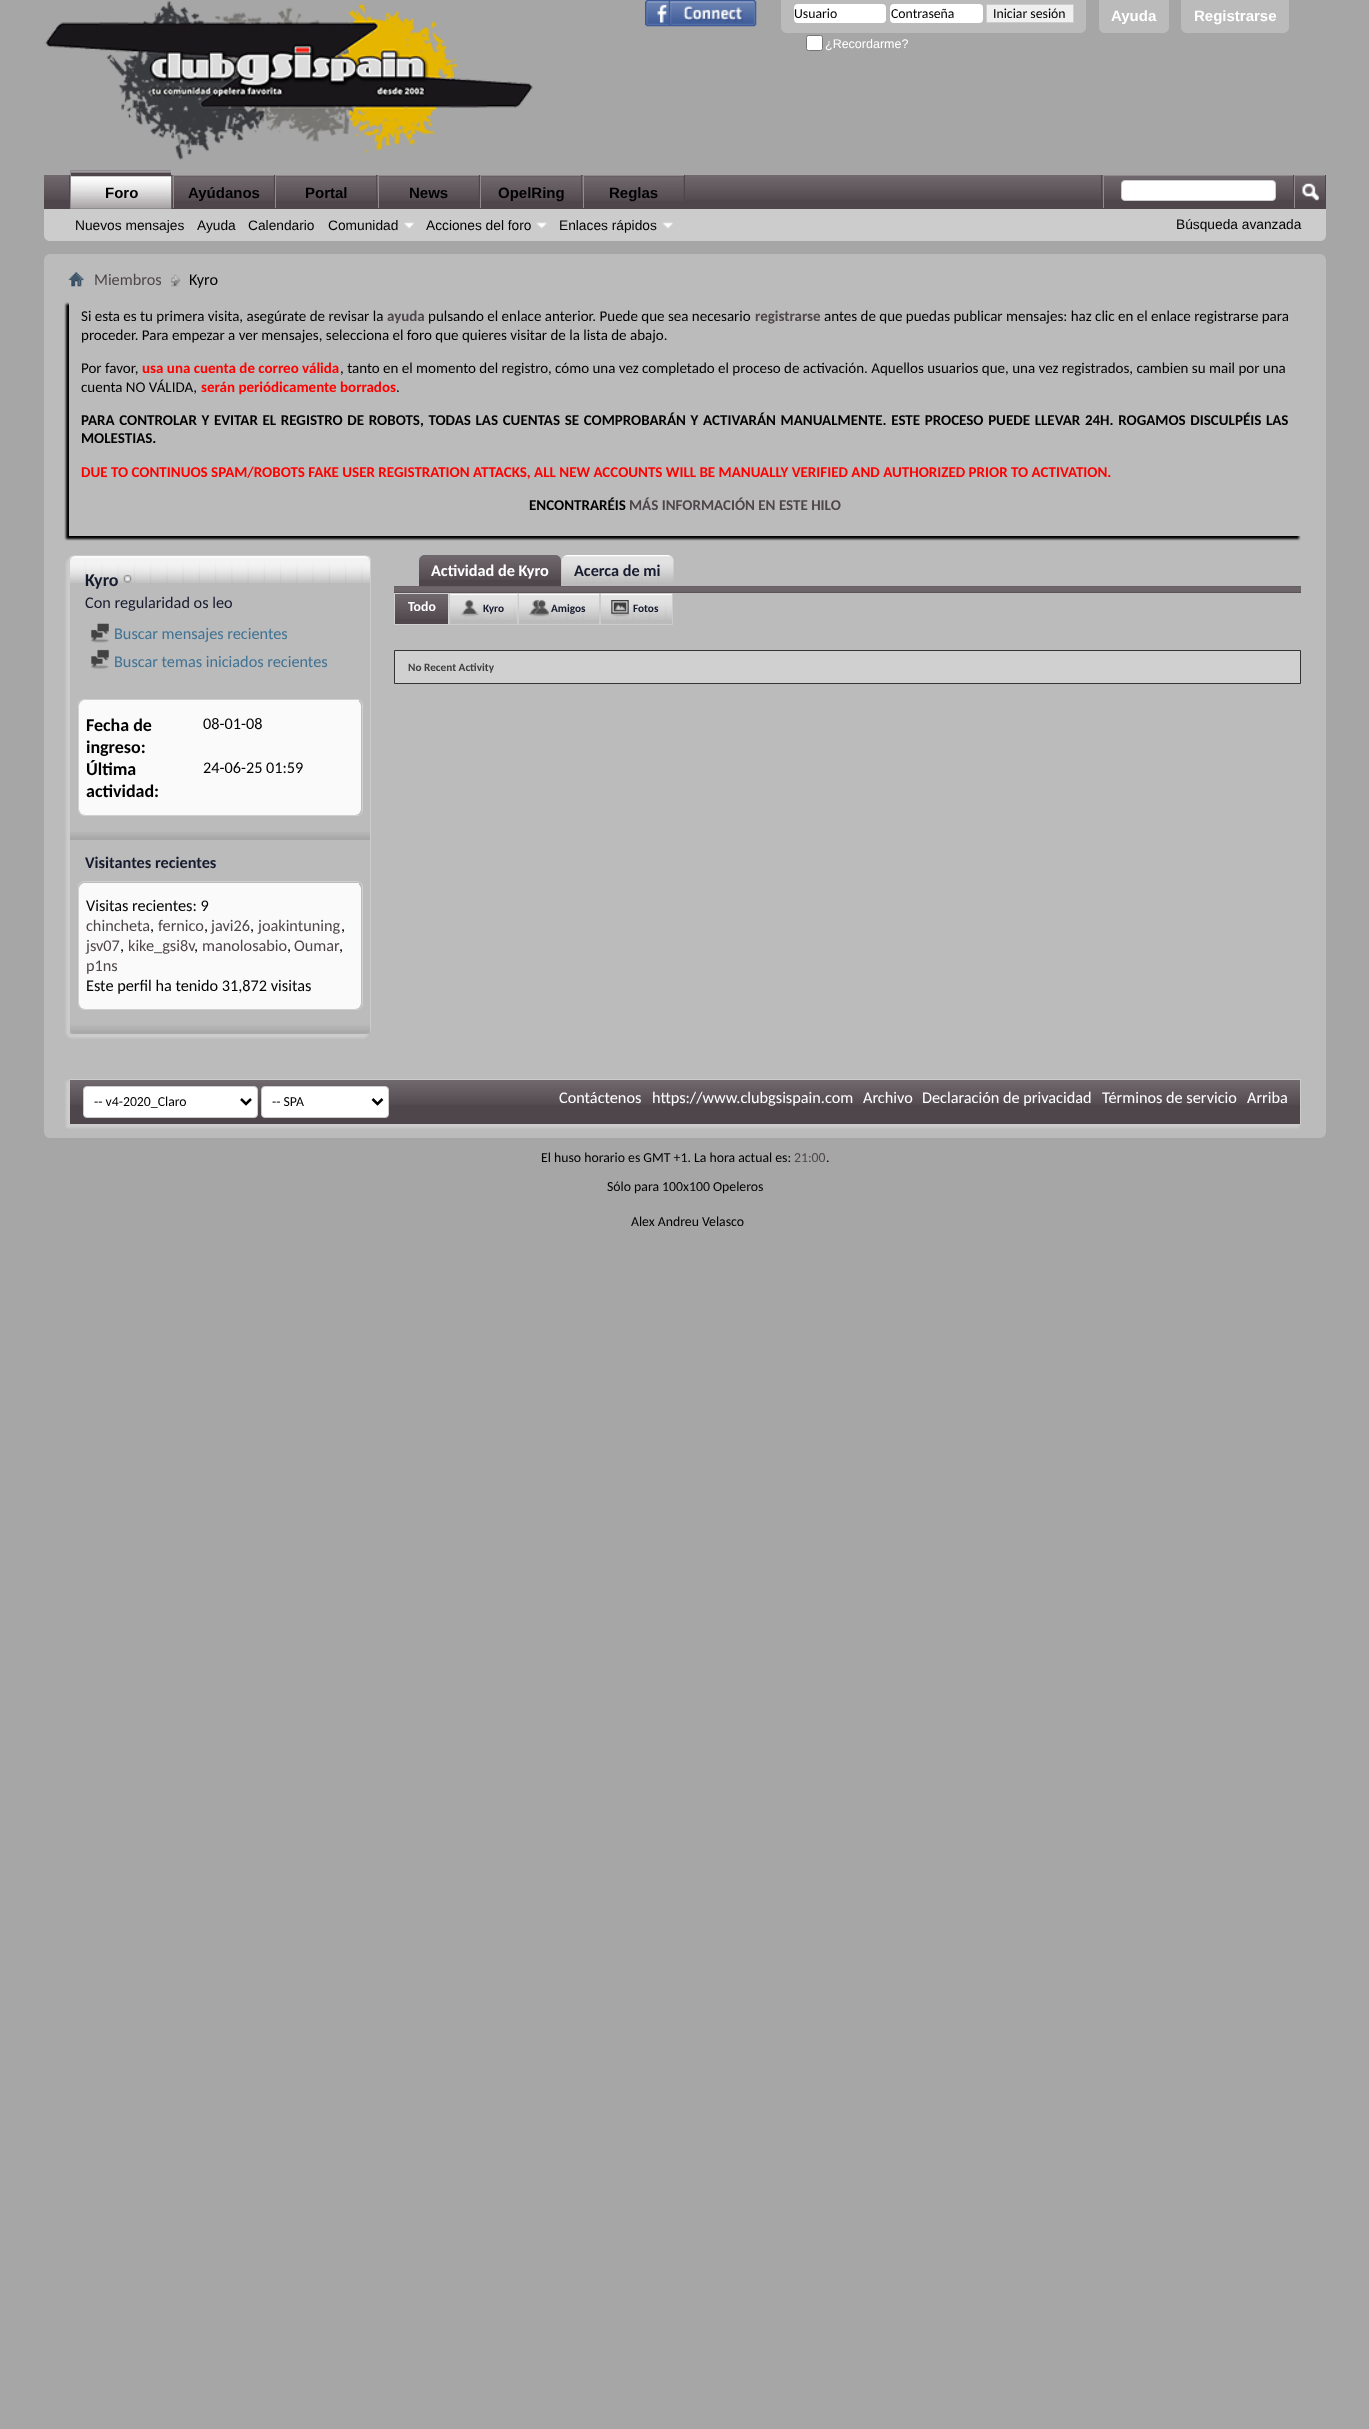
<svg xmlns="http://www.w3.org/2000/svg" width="1369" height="2429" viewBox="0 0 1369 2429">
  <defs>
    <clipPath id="clip1"><path d="M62 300H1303V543H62ZM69 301H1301V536H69Z" clip-rule="evenodd"/></clipPath>
  </defs>
  <rect width="100%" height="100%" fill="#a6a6a6"/>
  <image x="45" y="1" width="488" height="159" href="img/1.png"/>
  <image x="645" y="0" width="112" height="27" href="img/2.png"/>
  <path d="M781 0H1086V27C1086 30.5 1083.5 33 1080 33H787C783.5 33 781 30.5 781 27Z" fill="#bbb"/>
  <rect x="794" y="4" width="92" height="19" rx="4" fill="#fff"/>
  <rect x="890" y="4" width="93" height="19" rx="4" fill="#fff"/>
  <path d="M986.5 4.5h87v18H986.5z" fill="#efefef" stroke="#ccc"/>
  <rect x="806.5" y="35.5" width="16" height="15" rx="2" fill="#fff" stroke="#767676"/>
  <path d="M1099 0H1169V27C1169 30.5 1166.5 33 1163 33H1105C1101.5 33 1099 30.5 1099 27Z" fill="#bbb"/>
  <path d="M1181 0H1289V27C1289 30.5 1286.5 33 1283 33H1187C1183.5 33 1181 30.5 1181 27Z" fill="#bbb"/>
  <path d="M44 175H1326V235C1326 238.5 1323.5 241 1320 241H50C46.5 241 44 238.5 44 235Z" fill="#ccc"/>
  <path d="M44 175h1282v33H44z" fill="#4f464b"/>
  <image x="44" y="175" width="1281" height="25" href="img/3.png"/>
  <path d="M171 175h1v33H171z" fill="#4f464b"/>
  <path d="M69 175h1v33H69z" fill="#4f464b"/>
  <path d="M71 171h100v29H71z" fill="#4f464b"/>
  <path d="M274 175h1v34H274z" fill="#4f464b"/>
  <path d="M174 176h100v24H174z" fill="#4f464b"/>
  <image x="172" y="176" width="102" height="25" href="img/5.png"/>
  <path d="M173 175h101v1H173z" fill="#90898d"/>
  <path d="M173 175h1v34H173z" fill="#90898d"/>
  <path d="M376 175h1v34H376z" fill="#4f464b"/>
  <path d="M275 175h101v1H275z" fill="#90898d"/>
  <path d="M275 175h1v34H275z" fill="#90898d"/>
  <path d="M479 175h1v34H479z" fill="#4f464b"/>
  <path d="M379 176h100v24H379z" fill="#4f464b"/>
  <image x="377" y="176" width="102" height="25" href="img/5.png"/>
  <path d="M378 175h101v1H378z" fill="#90898d"/>
  <path d="M378 175h1v34H378z" fill="#90898d"/>
  <path d="M581 175h1v34H581z" fill="#4f464b"/>
  <path d="M480 175h101v1H480z" fill="#90898d"/>
  <path d="M480 175h1v34H480z" fill="#90898d"/>
  <path d="M684 175h1v34H684z" fill="#4f464b"/>
  <path d="M584 176h100v24H584z" fill="#4f464b"/>
  <image x="582" y="176" width="102" height="25" href="img/5.png"/>
  <path d="M583 175h101v1H583z" fill="#90898d"/>
  <path d="M583 175h1v34H583z" fill="#90898d"/>
  <path d="M44 208h1282v1H44z" fill="#4f464b"/>
  <image x="71" y="171" width="101" height="38" href="img/4.png"/>
  <path d="M70 170h101v1H70z" fill="#90898d"/>
  <path d="M70 170h1v39H70z" fill="#90898d"/>
  <path d="M276 176h100v24H276z" fill="#4f464b"/>
  <image x="276" y="176" width="101" height="25" href="img/6.png"/>
  <path d="M481 176h100v24H481z" fill="#4f464b"/>
  <image x="481" y="176" width="101" height="25" href="img/6.png"/>
  <image x="404" y="222" width="10" height="7" href="img/7.png"/>
  <image x="536" y="222" width="11" height="7" href="img/8.png"/>
  <image x="662" y="222" width="11" height="7" href="img/9.png"/>
  <path d="M1101 175h1v33H1101z" fill="#4f464b"/>
  <path d="M1103 175h190v1H1103z" fill="#90898d"/>
  <path d="M1103 175h1v33H1103z" fill="#90898d"/>
  <rect x="1121.5" y="180.5" width="154" height="20" rx="3.5" fill="#fff" stroke="#ccc"/>
  <path d="M1293 175h1v33H1293z" fill="#4f464b"/>
  <path d="M1294 175h31v1H1294z" fill="#90898d"/>
  <path d="M1294 175h1v33H1294z" fill="#90898d"/>
  <image x="1302" y="183" width="17" height="18" href="img/10.png"/>
  <rect x="44" y="254" width="1282" height="884" rx="6" fill="#bbb"/>
  <image x="68" y="272" width="16" height="15" href="img/11.png"/>
  <image x="171" y="274" width="9" height="13" href="img/12.png"/>
  <g clip-path="url(#clip1)">
    <path d="M66 304h1233v235H66z" fill="#000" filter="blur(1px)"/>
  </g>
  <rect x="66" y="558" width="303" height="480" rx="6" fill="#ccc" filter="blur(1px)"/>
  <rect x="69" y="555" width="302" height="480" rx="6" fill="#bbb"/>
  <image x="69" y="556" width="302" height="27" href="img/13.png"/>
  <rect x="69.5" y="555.5" width="301" height="479" rx="5.5" fill="none" stroke="#ccc"/>
  <image x="70" y="556" width="300" height="27" href="img/14.png"/>
  <image x="123" y="574" width="9" height="9" href="img/15.png"/>
  <image x="90" y="623" width="19" height="20" href="img/16.png"/>
  <image x="91" y="649" width="18" height="20" href="img/17.png"/>
  <rect x="78.5" y="699.5" width="284" height="116" rx="5.5" fill="none" stroke="#d0d0d0"/>
  <rect x="79" y="700" width="282" height="115" rx="6" fill="#fafafa"/>
  <path d="M83 700h276v1H83z" fill="#fafafa"/>
  <image x="70" y="832" width="300" height="8" href="img/18.png"/>
  <rect x="78.5" y="881.5" width="284" height="128" rx="5.5" fill="none" stroke="#d0d0d0"/>
  <rect x="79" y="883" width="282" height="126" rx="6" fill="#fafafa"/>
  <path d="M83 883h276v1H83z" fill="#fafafa"/>
  <image x="70" y="1025" width="300" height="9" href="img/19.png"/>
  <path d="M425 555H555C558.5 555 561 557.5 561 561V586H419V561C419 557.5 421.5 555 425 555Z" fill="#4f464b"/>
  <image x="419" y="555" width="142" height="25" href="img/20.png"/>
  <image x="561" y="555" width="113" height="27" href="img/21.png"/>
  <path d="M394 586h907v7H394z" fill="#4f464b"/>
  <image x="394" y="586" width="907" height="7" href="img/22.png"/>
  <path d="M395 594h53v30H395z" fill="#4f464b"/>
  <image x="395" y="594" width="53" height="25" href="img/23.png"/>
  <path d="M394.5 593.5h54v31H394.5z" fill="none" stroke="#d0d0d0"/>
  <image x="448" y="593" width="69" height="27" href="img/24.png"/>
  <path d="M449.5 593.5h68v31H449.5z" fill="none" stroke="#ccc"/>
  <image x="461" y="599" width="18" height="18" href="img/25.png"/>
  <image x="517" y="593" width="82" height="27" href="img/26.png"/>
  <path d="M518.5 593.5h81v31H518.5z" fill="none" stroke="#ccc"/>
  <image x="528" y="599" width="21" height="18" href="img/27.png"/>
  <image x="601" y="594" width="71" height="26" href="img/28.png"/>
  <path d="M600.5 593.5h72v31H600.5z" fill="none" stroke="#ccc"/>
  <image x="611" y="600" width="19" height="17" href="img/29.png"/>
  <path d="M394.5 650.5h906v33H394.5z" fill="#d0d0d0" stroke="#333"/>
  <path d="M66 1081h1233v47H66z" fill="#ccc" filter="blur(1px)"/>
  <path d="M70 1080h1230v44H70z" fill="#4f464b"/>
  <image x="70" y="1080" width="1230" height="25" href="img/30.png"/>
  <path d="M69.5 1079.5h1231v45H69.5z" fill="none" stroke="#ccc"/>
  <rect x="83.5" y="1086.5" width="174" height="31" rx="3.5" fill="#fff" stroke="#ccc"/>
  <path d="M241 1099L246 1104L251 1099" fill="none" stroke="#000" stroke-width="2.5"/>
  <rect x="261.5" y="1086.5" width="127" height="31" rx="3.5" fill="#fff" stroke="#ccc"/>
  <path d="M372.5 1099L377.5 1104L382.5 1099" fill="none" stroke="#000" stroke-width="2.5"/>
  <g font-family="Carlito" font-size="13.75" fill="#000">
    <text x="794" y="18">Usuario</text>
    <text x="891" y="18">Contraseña</text>
    <text x="993" y="18">Iniciar sesión</text>
  </g>
  <text x="825" y="48" font-family="Liberation Sans" font-size="12.5" fill="#fff">¿Recordarme?</text>
  <g font-family="Liberation Sans" font-size="15" font-weight="bold" fill="#fff">
    <text x="1111" y="21">Ayuda</text>
    <text x="1194" y="21">Registrarse</text>
  </g>
  <g font-family="Liberation Sans" font-size="15" font-weight="bold" fill="#000">
    <text x="105" y="198">Foro</text>
    <text x="188" y="198">Ayúdanos</text>
    <text x="305" y="198">Portal</text>
    <text x="409" y="198">News</text>
    <text x="498" y="198">OpelRing</text>
    <text x="609" y="198">Reglas</text>
  </g>
  <g font-family="Liberation Sans" font-size="13.75" fill="#000">
    <text x="75" y="230">Nuevos mensajes</text>
    <text x="197" y="230">Ayuda</text>
    <text x="248" y="230">Calendario</text>
    <text x="328" y="230">Comunidad</text>
    <text x="426" y="230">Acciones del foro</text>
    <text x="559" y="230">Enlaces rápidos</text>
    <text x="1176" y="229">Búsqueda avanzada</text>
  </g>
  <text x="94" y="285" font-family="Carlito" font-size="16.25" fill="#4f464b">Miembros</text>
  <text x="189" y="285" font-family="Carlito" font-size="16.25" fill="#000">Kyro</text>
  <text x="81" y="321" font-family="Carlito" font-size="15" fill="#000">Si esta es tu primera visita, asegúrate de revisar la</text>
  <text x="387" y="321" font-family="Carlito" font-size="15" font-weight="bold" fill="#4f464b">ayuda</text>
  <text x="428" y="321" font-family="Carlito" font-size="15" fill="#000">pulsando el enlace anterior. Puede que sea necesario</text>
  <text x="755" y="321" font-family="Carlito" font-size="15" font-weight="bold" fill="#4f464b">registrarse</text>
  <g font-family="Carlito" font-size="15" fill="#000">
    <text x="824" y="321">antes de que puedas publicar mensajes: haz clic en el enlace registrarse para</text>
    <text x="81" y="340">proceder. Para empezar a ver mensajes, selecciona el foro que quieres visitar de la lista de abajo.</text>
    <text x="81" y="373">Por favor,</text>
  </g>
  <text x="142" y="373" font-family="Carlito" font-size="15" font-weight="bold" fill="#f00">usa una cuenta de correo válida</text>
  <g font-family="Carlito" font-size="15" fill="#000">
    <text x="340" y="373">, tanto en el momento del registro, cómo una vez completado el proceso de activación. Aquellos usuarios que, una vez registrados, cambien su mail por una</text>
    <text x="81" y="392">cuenta NO VÁLIDA,</text>
  </g>
  <text x="201" y="392" font-family="Carlito" font-size="15" font-weight="bold" fill="#f00">serán periódicamente borrados</text>
  <text x="396" y="392" font-family="Carlito" font-size="15" fill="#000">.</text>
  <g font-family="Carlito" font-size="15" font-weight="bold" fill="#000">
    <text x="81" y="425" word-spacing="1.25">PARA CONTROLAR Y EVITAR EL REGISTRO DE ROBOTS, TODAS LAS CUENTAS SE COMPROBARÁN Y ACTIVARÁN MANUALMENTE. ESTE PROCESO PUEDE LLEVAR 24H. ROGAMOS DISCULPÉIS LAS</text>
    <text x="81" y="443">MOLESTIAS.</text>
  </g>
  <text x="81" y="477" font-family="Carlito" font-size="15" font-weight="bold" fill="#f00">DUE TO CONTINUOS SPAM/ROBOTS FAKE USER REGISTRATION ATTACKS, ALL NEW ACCOUNTS WILL BE MANUALLY VERIFIED AND AUTHORIZED PRIOR TO ACTIVATION.</text>
  <text x="529" y="510" font-family="Carlito" font-size="15" font-weight="bold" fill="#000">ENCONTRARÉIS</text>
  <text x="629" y="510" font-family="Carlito" font-size="15" font-weight="bold" fill="#4f464b">MÁS INFORMACIÓN EN ESTE HILO</text>
  <text x="85" y="586" font-family="Carlito" font-size="18" font-weight="bold" fill="#161a2e">Kyro</text>
  <text x="85" y="608" font-family="Carlito" font-size="16.25" fill="#161a2e">Con regularidad os leo</text>
  <g font-family="Carlito" font-size="16.25" fill="#417394">
    <text x="114" y="639">Buscar mensajes recientes</text>
    <text x="114" y="667">Buscar temas iniciados recientes</text>
  </g>
  <g font-family="Carlito" font-size="18" font-weight="bold" fill="#000">
    <text x="86" y="731">Fecha de</text>
    <text x="86" y="753">ingreso:</text>
  </g>
  <text x="203" y="729" font-family="Carlito" font-size="16.25" fill="#000">08-01-08</text>
  <g font-family="Carlito" font-size="18" font-weight="bold" fill="#000">
    <text x="86" y="775">Última</text>
    <text x="86" y="797">actividad:</text>
  </g>
  <text x="203" y="773" font-family="Carlito" font-size="16.25" fill="#000">24-06-25 01:59</text>
  <text x="85" y="868" font-family="Carlito" font-size="16.25" font-weight="bold" fill="#161a2e">Visitantes recientes</text>
  <text x="86" y="911" font-family="Carlito" font-size="16.25" fill="#000">Visitas recientes: 9</text>
  <text x="86" y="931" font-family="Carlito" font-size="16.25" fill="#4f464b">chincheta</text>
  <text x="150" y="931" font-family="Carlito" font-size="16.25" fill="#000">,</text>
  <text x="158" y="931" font-family="Carlito" font-size="16.25" fill="#4f464b">fernico</text>
  <text x="204" y="931" font-family="Carlito" font-size="16.25" fill="#000">,</text>
  <text x="211" y="931" font-family="Carlito" font-size="16.25" fill="#4f464b">javi26</text>
  <text x="250" y="931" font-family="Carlito" font-size="16.25" fill="#000">,</text>
  <text x="258" y="931" font-family="Carlito" font-size="16.25" fill="#4f464b">joakintuning</text>
  <text x="341" y="931" font-family="Carlito" font-size="16.25" fill="#000">,</text>
  <text x="86" y="951" font-family="Carlito" font-size="16.25" fill="#4f464b">jsv07</text>
  <text x="120" y="951" font-family="Carlito" font-size="16.25" fill="#000">,</text>
  <text x="128" y="951" font-family="Carlito" font-size="16.25" fill="#4f464b">kike_gsi8v</text>
  <text x="194" y="951" font-family="Carlito" font-size="16.25" fill="#000">,</text>
  <text x="202" y="951" font-family="Carlito" font-size="16.25" fill="#4f464b">manolosabio</text>
  <text x="287" y="951" font-family="Carlito" font-size="16.25" fill="#000">,</text>
  <text x="294" y="951" font-family="Carlito" font-size="16.25" fill="#4f464b">Oumar</text>
  <text x="339" y="951" font-family="Carlito" font-size="16.25" fill="#000">,</text>
  <text x="86" y="971" font-family="Carlito" font-size="16.25" fill="#4f464b">p1ns</text>
  <text x="86" y="991" font-family="Carlito" font-size="16.25" fill="#000">Este perfil ha tenido 31,872 visitas</text>
  <text x="431" y="576" font-family="Carlito" font-size="16.25" font-weight="bold" fill="#fff">Actividad de Kyro</text>
  <text x="574" y="576" font-family="Carlito" font-size="16.25" font-weight="bold" fill="#161a2e">Acerca de mi</text>
  <text x="408" y="611" font-family="Carlito" font-size="13.75" font-weight="bold" fill="#fff">Todo</text>
  <g font-family="Carlito" font-size="11.25" font-weight="bold" fill="#161a2e">
    <text x="483" y="612">Kyro</text>
    <text x="551" y="612">Amigos</text>
    <text x="633" y="612">Fotos</text>
  </g>
  <text x="408" y="671" font-family="Carlito" font-size="11.25" font-weight="bold" fill="#3e3e3e">No Recent Activity</text>
  <g font-family="Carlito" font-size="13.75" fill="#000">
    <text x="94" y="1106">-- v4-2020_Claro</text>
    <text x="272" y="1106">-- SPA</text>
  </g>
  <g font-family="Carlito" font-size="16.25" fill="#fff">
    <text x="559" y="1103">Contáctenos</text>
    <text x="652" y="1103">https://www.clubgsispain.com</text>
    <text x="863" y="1103">Archivo</text>
    <text x="922" y="1103">Declaración de privacidad</text>
    <text x="1102" y="1103">Términos de servicio</text>
    <text x="1247" y="1103">Arriba</text>
  </g>
  <text x="541" y="1162" font-family="Carlito" font-size="13.75" fill="#000">El huso horario es GMT +1. La hora actual es:</text>
  <text x="794" y="1162" font-family="Carlito" font-size="13.75" fill="#4f464b">21:00</text>
  <g font-family="Carlito" font-size="13.75" fill="#000">
    <text x="826" y="1162">.</text>
    <text x="607" y="1191">Sólo para 100x100 Opeleros</text>
    <text x="631" y="1226">Alex Andreu Velasco</text>
  </g>
</svg>
